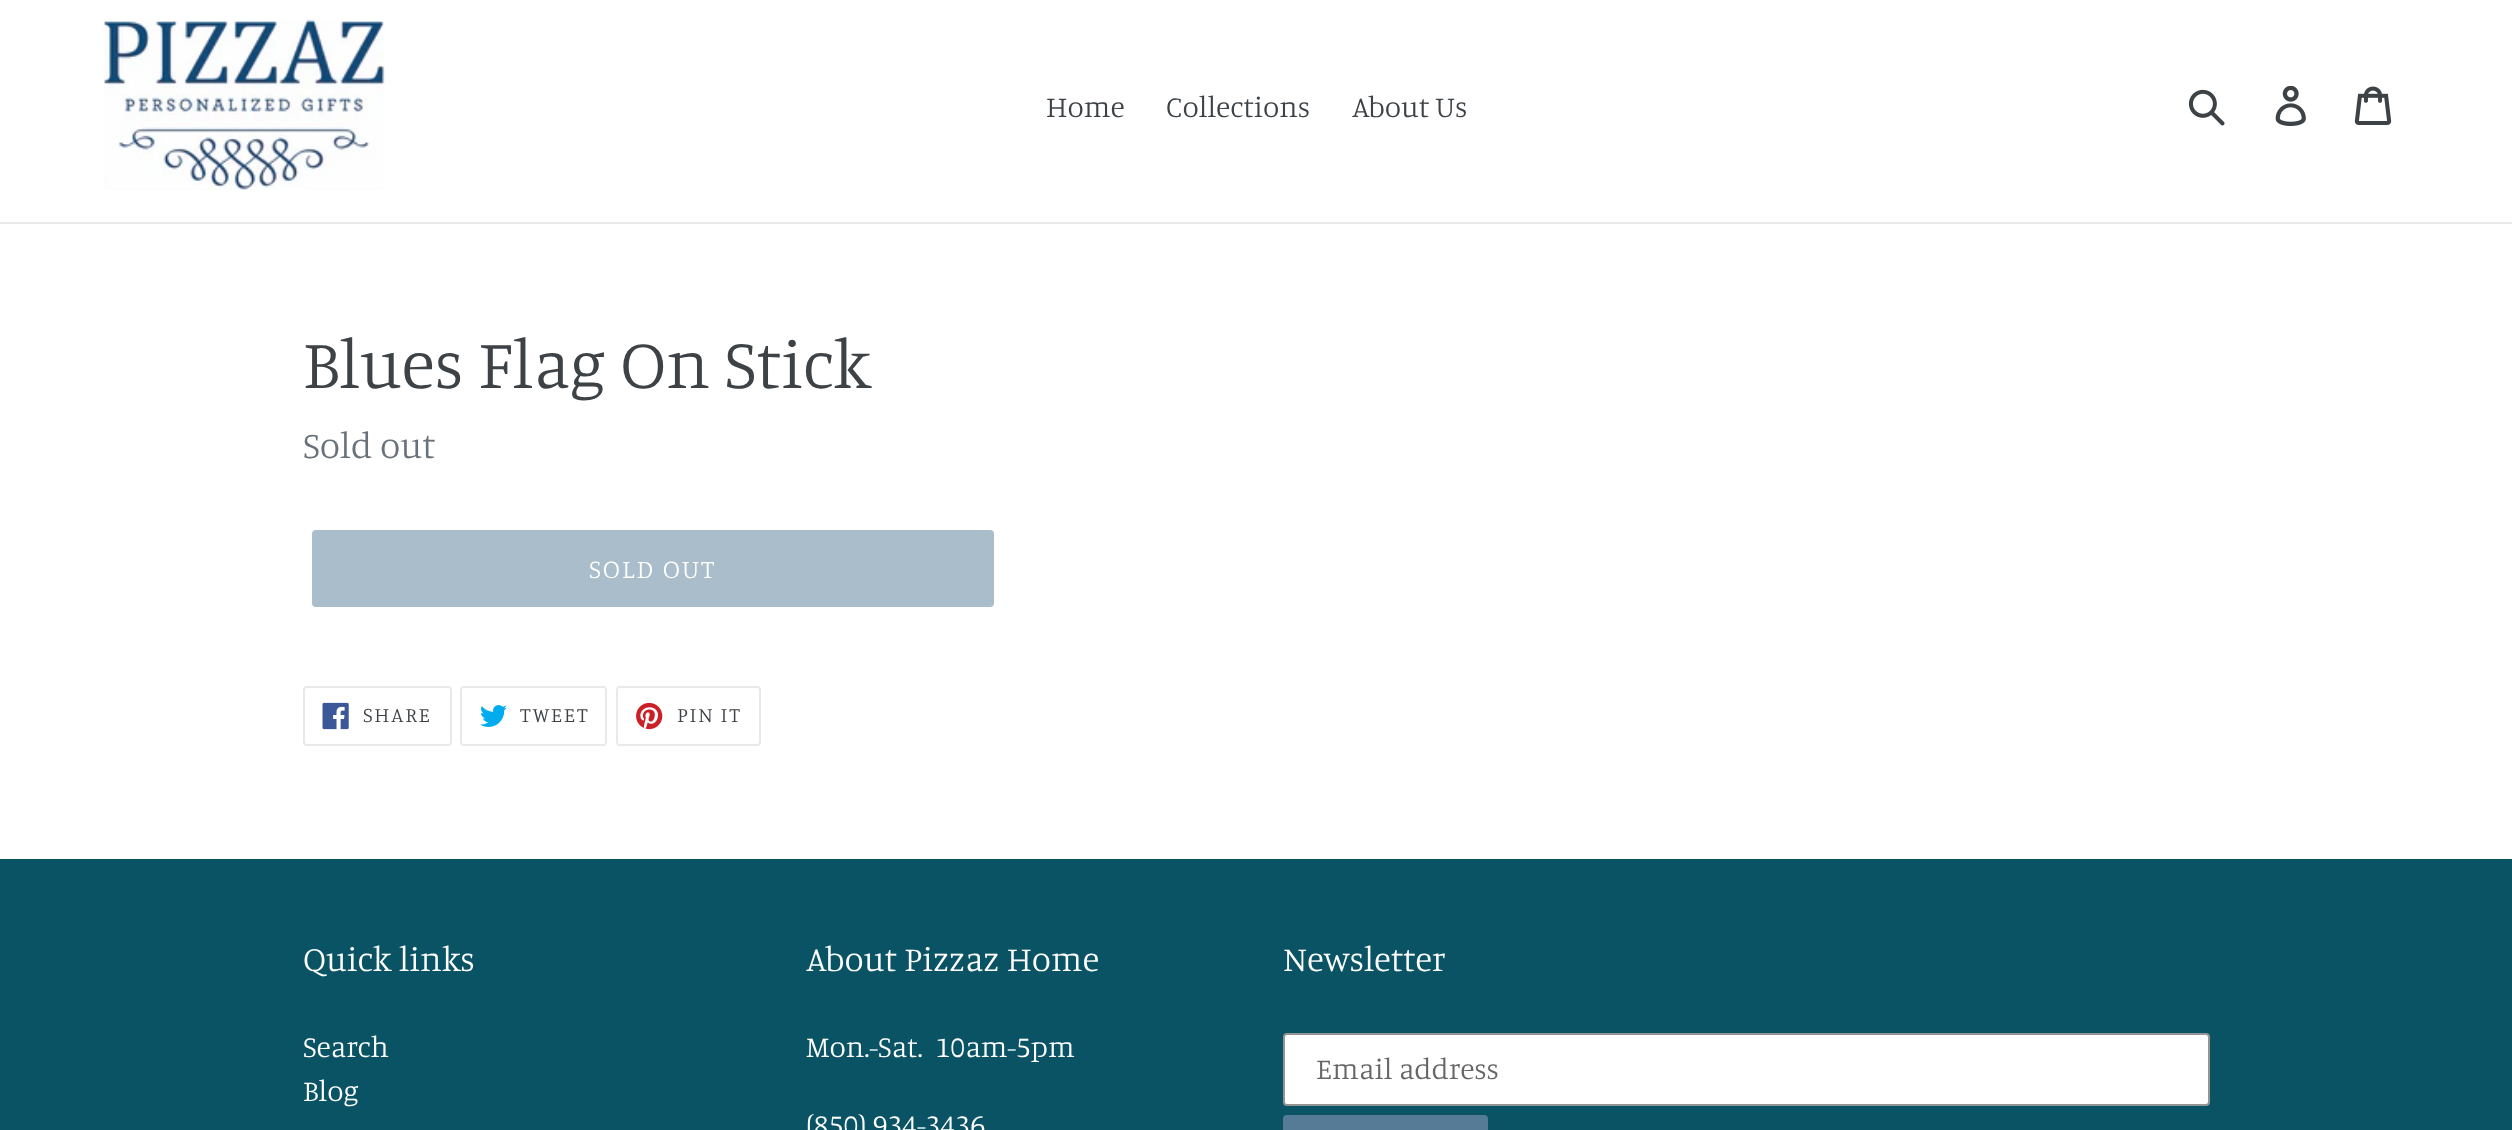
<svg xmlns="http://www.w3.org/2000/svg" width="2512" height="1130" viewBox="0 0 2512 1130">
  <rect width="100%" height="100%" fill="#fff"/>
  <path d="M0 222h2512v2H0z" fill="#e8e9eb"/>
  <image x="104" y="19" width="281" height="171" href="img/1.png"/>
  <image x="2188" y="89" width="37" height="37" href="img/2.png"/>
  <image x="2275" y="86" width="31" height="40" href="img/3.png"/>
  <image x="2354" y="86" width="38" height="39" href="img/4.png"/>
  <rect x="312" y="530" width="682" height="77" rx="4" fill="#aabdcb"/>
  <rect x="304" y="687" width="147" height="58" rx="3" fill="none" stroke="#e8e9eb" stroke-width="2"/>
  <image x="322" y="702" width="27" height="28" href="img/5.png"/>
  <rect x="461" y="687" width="145" height="58" rx="3" fill="none" stroke="#e8e9eb" stroke-width="2"/>
  <image x="480" y="705" width="27" height="22" href="img/6.png"/>
  <rect x="617" y="687" width="143" height="58" rx="3" fill="none" stroke="#e8e9eb" stroke-width="2"/>
  <image x="636" y="702" width="27" height="28" href="img/7.png"/>
  <path d="M0 859h2512v271H0z" fill="#095365"/>
  <rect x="1284" y="1034" width="925" height="71" rx="3" fill="#fff" stroke="#949494" stroke-width="2"/>
  <rect x="1283" y="1115" width="205" height="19" rx="4" fill="#557b97"/>
  <g font-family="Manuale" font-size="29.75" font-weight="300" fill="#3d4246">
    <text x="1046" y="117">Home</text>
    <text x="1166" y="117">Collections</text>
    <text x="1352" y="117">About Us</text>
  </g>
  <text x="303" y="388" font-family="Manuale" font-size="70" font-weight="300" fill="#3d4246">Blues Flag On Stick</text>
  <text x="303" y="458" font-family="Manuale" font-size="37" font-weight="300" fill="#69727b">Sold out</text>
  <text x="589" y="578" font-family="Manuale" font-size="26.25" font-weight="300" letter-spacing="2" fill="#fff">SOLD OUT</text>
  <g font-family="Manuale" font-size="21" font-weight="300" letter-spacing="1.75" fill="#3d4246">
    <text x="363" y="722">SHARE</text>
    <text x="520" y="722">TWEET</text>
    <text x="677" y="722">PIN IT</text>
  </g>
  <text x="303" y="971" font-family="Manuale" font-size="35" font-weight="300" fill="#fff">Quick links</text>
  <g font-family="Manuale" font-size="29.75" font-weight="300" fill="#fff">
    <text x="303" y="1057">Search</text>
    <text x="303" y="1101">Blog</text>
  </g>
  <text x="806" y="971" font-family="Manuale" font-size="35" font-weight="300" fill="#fff">About Pizzaz Home</text>
  <g font-family="Manuale" font-size="29.75" font-weight="300" fill="#fff">
    <text x="806" y="1057" xml:space="preserve">Mon.-Sat.  10am-5pm</text>
    <text x="806" y="1135">(850) 934-3436</text>
  </g>
  <text x="1283" y="971" font-family="Manuale" font-size="35" font-weight="300" fill="#fff">Newsletter</text>
  <text x="1316" y="1079" font-family="Manuale" font-size="29.75" font-weight="300" fill="#666">Email address</text>
</svg>
